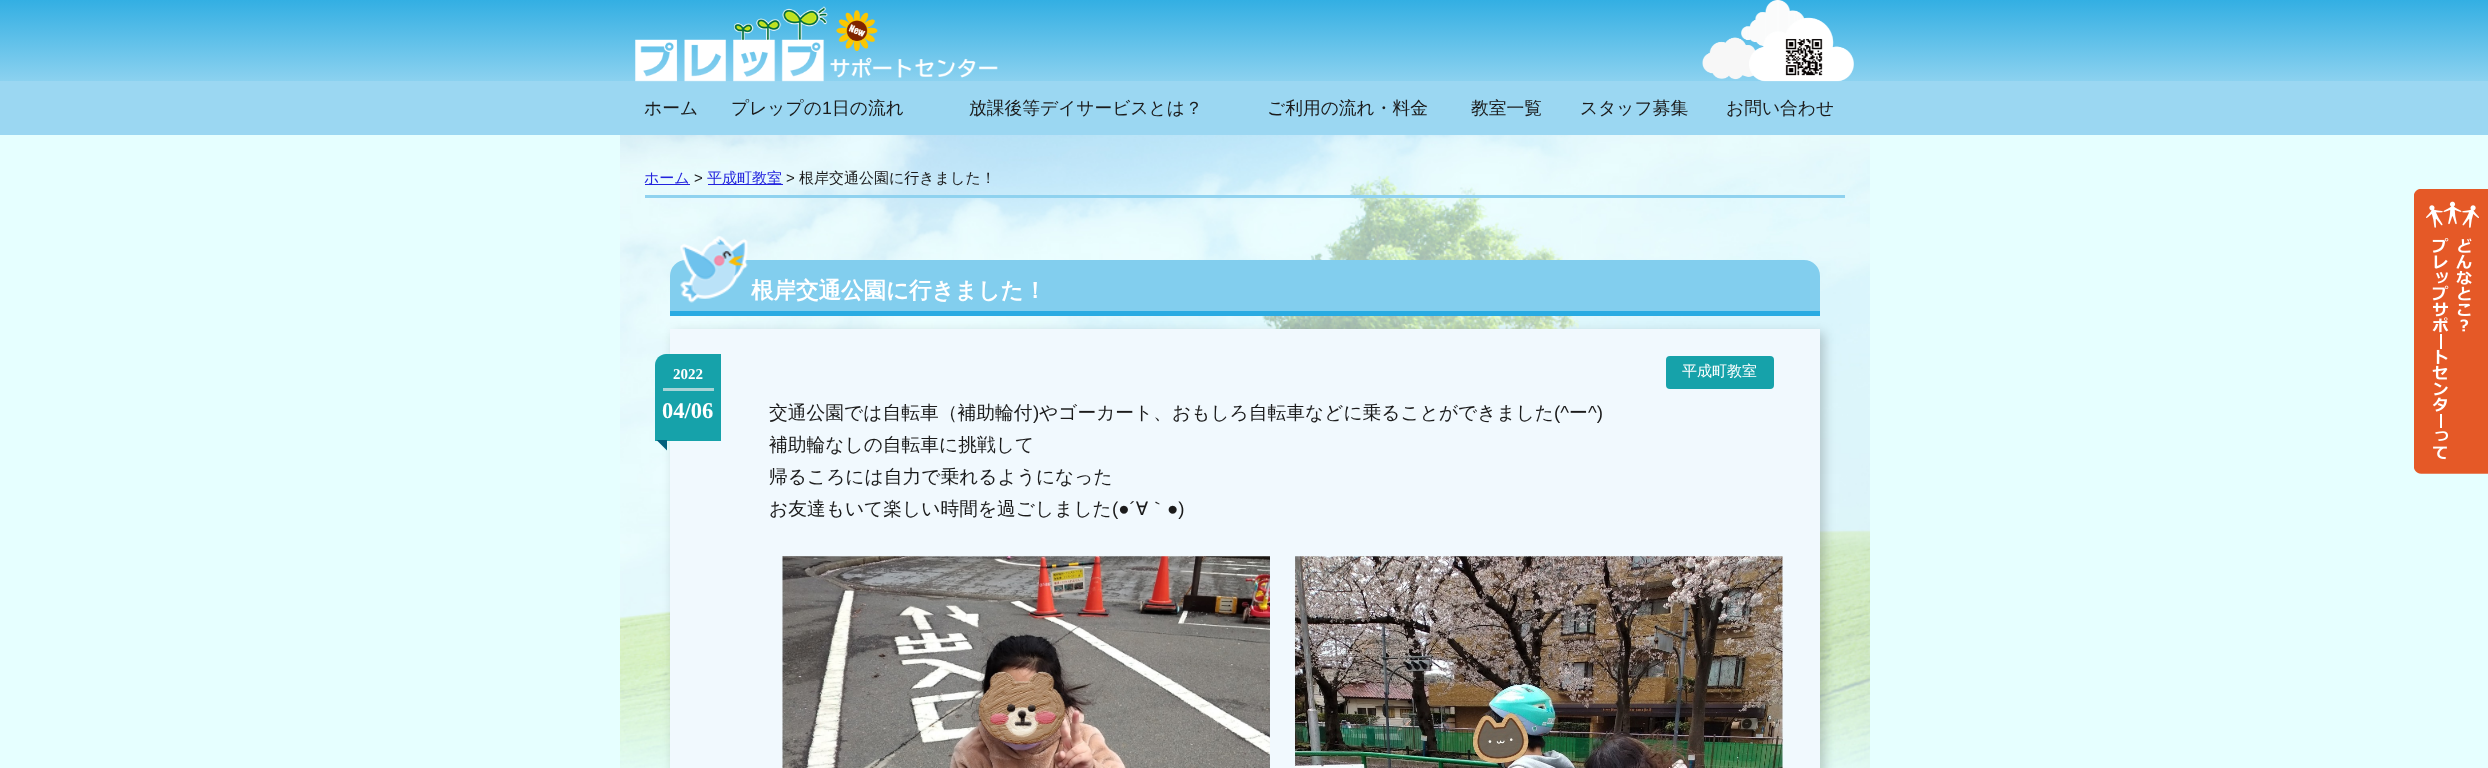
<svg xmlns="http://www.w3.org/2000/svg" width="2488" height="768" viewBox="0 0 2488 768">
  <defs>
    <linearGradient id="g1" gradientUnits="userSpaceOnUse" x1="1244" y1="0" x2="1244" y2="135"><stop offset="0" stop-color="#33afe3"/><stop offset="0.82" stop-color="#acdef4"/></linearGradient>
  </defs>
  <rect width="100%" height="100%" fill="#e6ffff"/>
  <image x="620" y="135" width="1250" height="633" href="img/1.png"/>
  <path d="M0 0h2488v81H0z" fill="url(#g1)"/>
  <path d="M0 81h2488v54H0z" fill="#9bd7f2"/>
  <image x="635" y="6" width="363" height="76" href="img/2.png"/>
  <image x="1702" y="0" width="152" height="82" href="img/3.png"/>
  <image x="836" y="10" width="42" height="41" href="img/4.png"/>
  <path d="M645 195h1200v3H645z" fill="#8fd2ef"/>
  <path d="M645 184h45v1H645z" fill="#2323dd"/>
  <path d="M708 184h75v1H708z" fill="#2323dd"/>
  <path d="M686 260H1804C1813 260 1820 267 1820 276V316H670V276C670 267 677 260 686 260Z" fill="#82ceee"/>
  <path d="M670 311h1150v5H670z" fill="#29abe2"/>
  <image x="680" y="236" width="68" height="67" href="img/5.png"/>
  <path d="M674 333h1150v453H674z" fill="#00000033" filter="blur(6px)"/>
  <path d="M670 329h1150v439H670z" fill="#f1f9fe"/>
  <path d="M666 354H721V441H655V365C655 359 660 354 666 354Z" fill="#16a2aa"/>
  <path d="M663 388h51v3H663z" fill="#a7d4d7"/>
  <path d="M667 450.5L656.5 440H667Z" fill="#005f7c"/>
  <rect x="1666" y="356" width="108" height="33" rx="4" fill="#16a2aa"/>
  <image x="782" y="556" width="488" height="212" href="img/6.png"/>
  <image x="1295" y="556" width="488" height="212" href="img/7.png"/>
  <image x="2414" y="189" width="74" height="285" href="img/8.png"/>
  <g font-family="WenQuanYi Zen Hei" font-size="17.75" font-weight="500" fill="#1b1b1b">
    <text x="644" y="114">ホーム</text>
    <text x="731" y="114">プレップの</text>
  </g>
  <text x="822" y="114" font-family="Liberation Sans" font-size="17.75" fill="#1b1b1b">1</text>
  <g font-family="WenQuanYi Zen Hei" font-size="17.75" font-weight="500" fill="#1b1b1b">
    <text x="832" y="114">日の流れ</text>
    <text x="969" y="114">放課後等デイサービスとは？</text>
    <text x="1267" y="114">ご利用の流れ・料金</text>
    <text x="1471" y="114">教室一覧</text>
    <text x="1580" y="114">スタッフ募集</text>
    <text x="1726" y="114">お問い合わせ</text>
  </g>
  <text x="644" y="183" font-family="WenQuanYi Zen Hei" font-size="15" font-weight="500" fill="#2323dd">ホーム</text>
  <text x="694" y="183" font-family="Liberation Sans" font-size="15" fill="#1b1b1b">&gt;</text>
  <text x="707" y="183" font-family="WenQuanYi Zen Hei" font-size="15" font-weight="500" fill="#2323dd">平成町教室</text>
  <text x="786" y="183" font-family="Liberation Sans" font-size="15" fill="#1b1b1b">&gt;</text>
  <text x="799" y="183" font-family="WenQuanYi Zen Hei" font-size="15" font-weight="500" fill="#1b1b1b">根岸交通公園に行きました！</text>
  <text x="751" y="298" font-family="WenQuanYi Zen Hei" font-size="22.5" font-weight="bold" fill="#fff">根岸交通公園に行きました！</text>
  <text x="673" y="379" font-family="Liberation Serif" font-size="15" font-weight="bold" fill="#fff">2022</text>
  <text x="662" y="418" font-family="Liberation Serif" font-size="22.5" font-weight="bold" fill="#fff">04/06</text>
  <text x="1682" y="376" font-family="WenQuanYi Zen Hei" font-size="15" font-weight="500" fill="#fff">平成町教室</text>
  <text x="769" y="419" font-family="WenQuanYi Zen Hei" font-size="18.75" font-weight="500" fill="#1b1b1b">交通公園では自転車（補助輪付</text>
  <text x="1033" y="419" font-family="Liberation Sans" font-size="18.75" fill="#1b1b1b">)</text>
  <text x="1039" y="419" font-family="WenQuanYi Zen Hei" font-size="18.75" font-weight="500" fill="#1b1b1b">やゴーカート、おもしろ自転車などに乗ることができました</text>
  <text x="1554" y="419" font-family="Liberation Sans" font-size="18.75" fill="#1b1b1b">(^</text>
  <text x="1569" y="419" font-family="WenQuanYi Zen Hei" font-size="18.75" font-weight="500" fill="#1b1b1b">ー</text>
  <text x="1588" y="419" font-family="Liberation Sans" font-size="18.75" fill="#1b1b1b">^)</text>
  <g font-family="WenQuanYi Zen Hei" font-size="18.75" font-weight="500" fill="#1b1b1b">
    <text x="769" y="451">補助輪なしの自転車に挑戦して</text>
    <text x="769" y="483">帰るころには自力で乗れるようになった</text>
    <text x="769" y="515">お友達もいて楽しい時間を過ごしました</text>
  </g>
  <text x="1112" y="515" font-family="Liberation Sans" font-size="18.75" fill="#1b1b1b">(●´</text>
  <text x="1136" y="515" font-family="WenQuanYi Zen Hei" font-size="18.75" font-weight="500" fill="#1b1b1b">∀｀</text>
  <text x="1167" y="515" font-family="Liberation Sans" font-size="18.75" fill="#1b1b1b">●)</text>
</svg>
